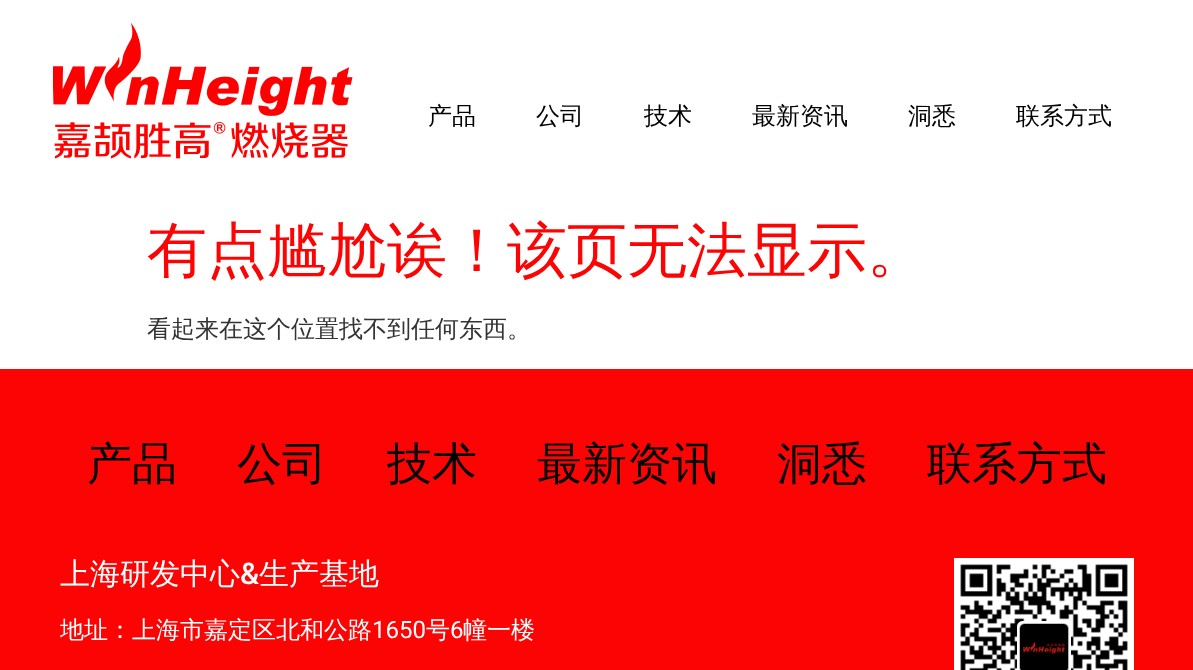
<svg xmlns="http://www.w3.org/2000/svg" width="1193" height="670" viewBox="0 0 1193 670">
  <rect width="100%" height="100%" fill="#fff"/>
  <image x="53" y="23" width="300" height="136" href="img/1.png"/>
  <path d="M0 369h1193v301H0z" fill="#fc0404"/>
  <image x="954" y="558" width="180" height="112" href="img/2.png"/>
  <g font-family="WenQuanYi Zen Hei" font-size="24" font-weight="500" fill="#000">
    <text x="428" y="124">产品</text>
    <text x="536" y="124">公司</text>
    <text x="644" y="124">技术</text>
    <text x="752" y="124">最新资讯</text>
    <text x="908" y="124">洞悉</text>
    <text x="1016" y="124">联系方式</text>
  </g>
  <text x="147" y="271" font-family="WenQuanYi Zen Hei" font-size="60" font-weight="500" fill="#fc0404">有点尴尬诶！该页无法显示。</text>
  <text x="147" y="337" font-family="WenQuanYi Zen Hei" font-size="24" font-weight="500" fill="#333">看起来在这个位置找不到任何东西。</text>
  <g font-family="WenQuanYi Zen Hei" font-size="45" font-weight="500" fill="#000">
    <text x="87" y="479">产品</text>
    <text x="237" y="479">公司</text>
    <text x="387" y="479">技术</text>
    <text x="537" y="479">最新资讯</text>
    <text x="777" y="479">洞悉</text>
    <text x="927" y="479">联系方式</text>
  </g>
  <text x="60" y="584" font-family="WenQuanYi Zen Hei" font-size="30" font-weight="500" fill="#fff">上海研发中心</text>
  <text x="240" y="584" font-family="Roboto" font-size="30" font-weight="500" fill="#fff">&amp;</text>
  <text x="259" y="584" font-family="WenQuanYi Zen Hei" font-size="30" font-weight="500" fill="#fff">生产基地</text>
  <text x="60" y="638" font-family="WenQuanYi Zen Hei" font-size="24" font-weight="500" fill="#fff">地址：上海市嘉定区北和公路</text>
  <text x="372" y="638" font-family="Roboto" font-size="24" fill="#fff">1650</text>
  <text x="426" y="638" font-family="WenQuanYi Zen Hei" font-size="24" font-weight="500" fill="#fff">号</text>
  <text x="450" y="638" font-family="Roboto" font-size="24" fill="#fff">6</text>
  <text x="463" y="638" font-family="WenQuanYi Zen Hei" font-size="24" font-weight="500" fill="#fff">幢一楼</text>
</svg>
